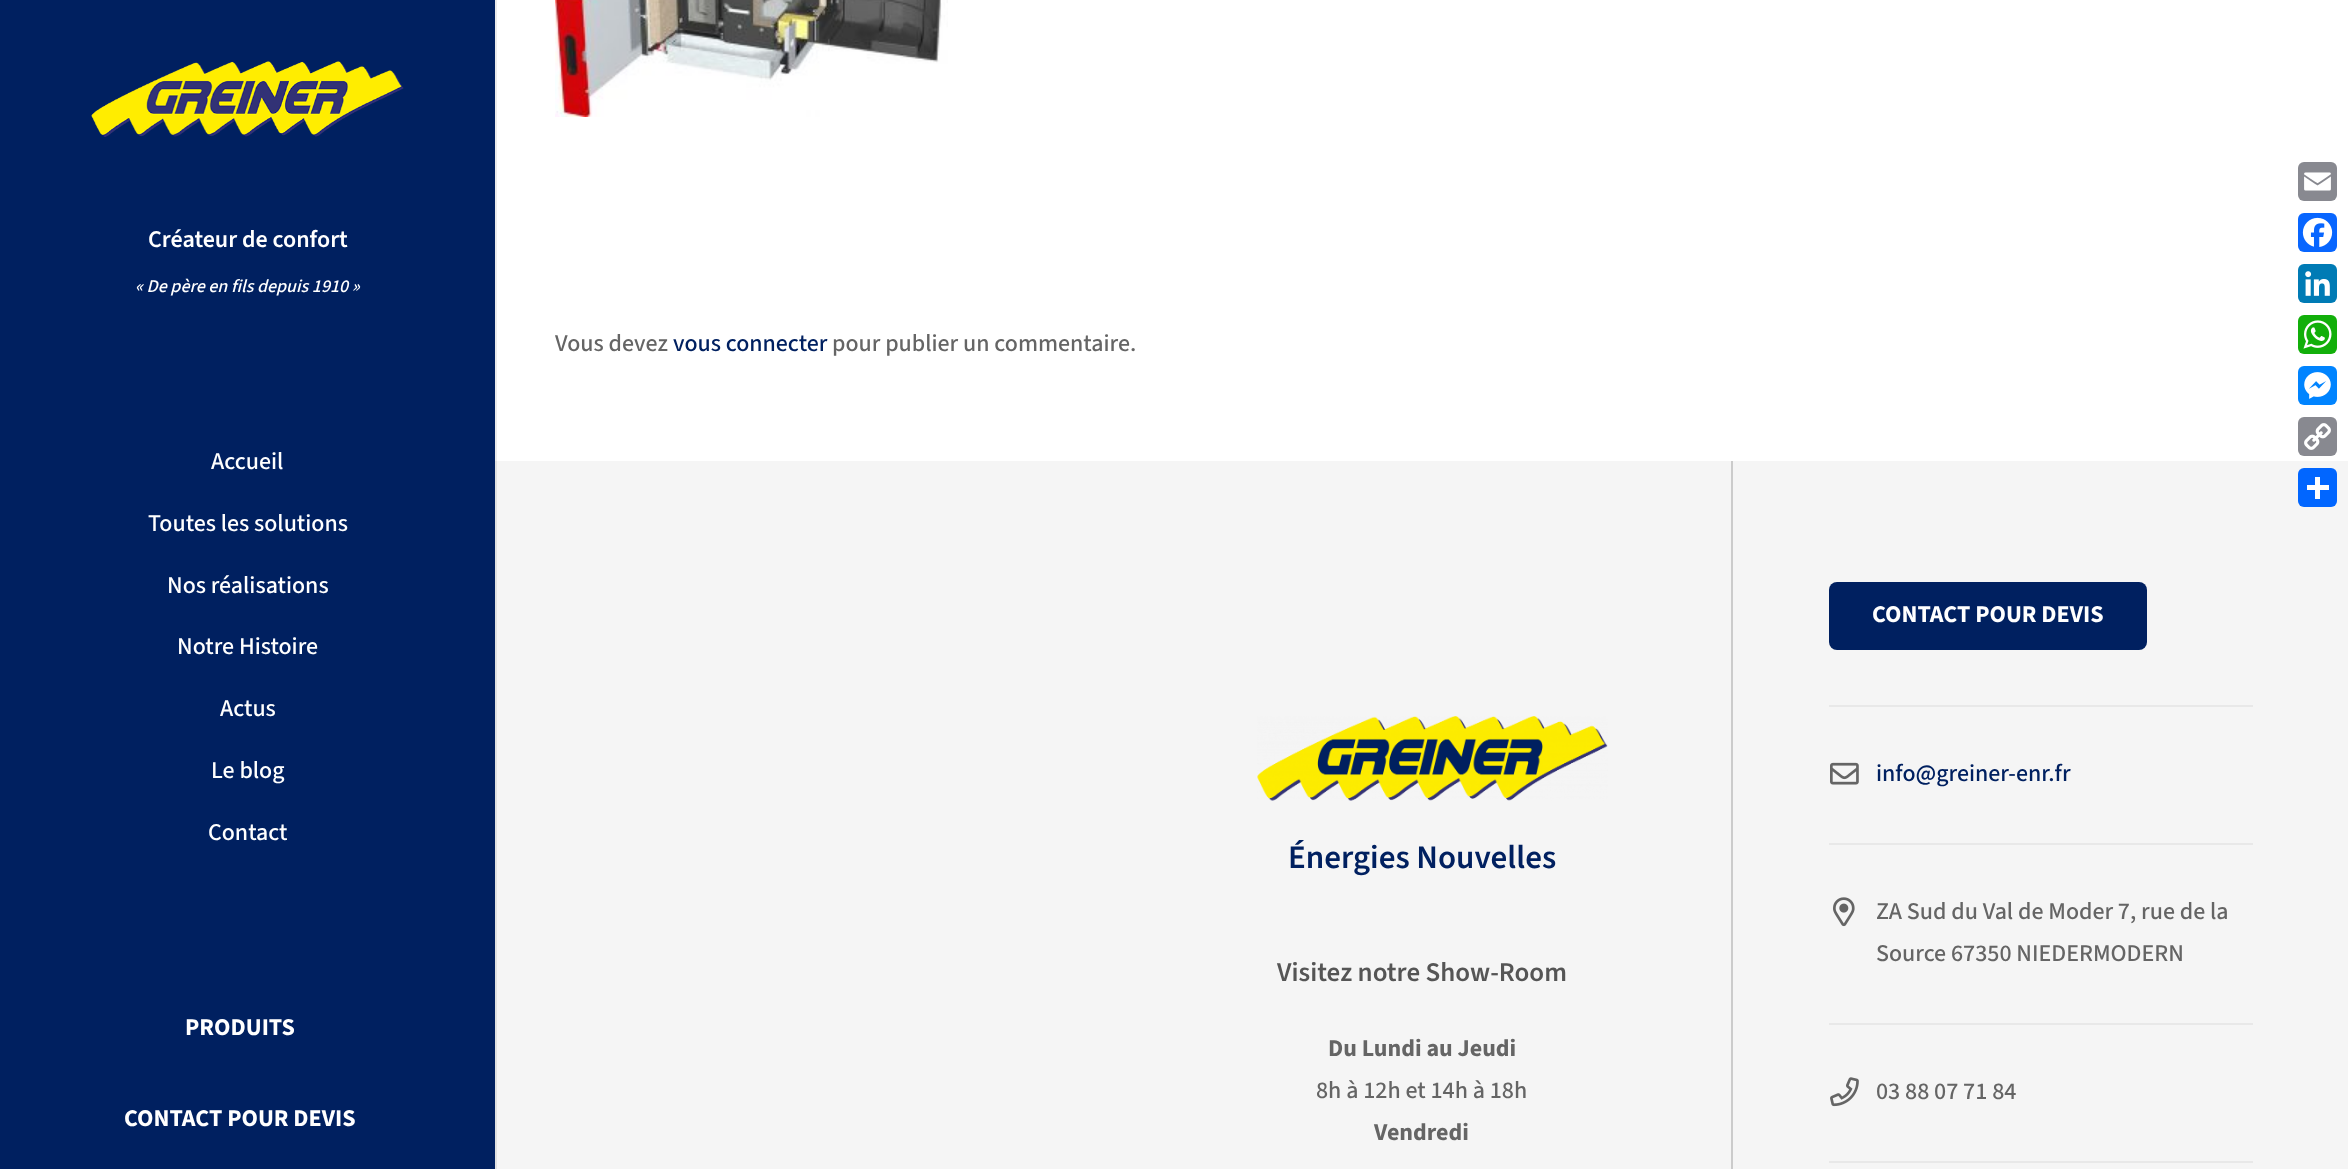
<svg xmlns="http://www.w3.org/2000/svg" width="2348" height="1169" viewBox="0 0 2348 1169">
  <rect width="100%" height="100%" fill="#fff"/>
  <path d="M495 0h2v461H495z" fill="#ebebeb"/>
  <path d="M0 0h495v1169H0z" fill="#002060"/>
  <image x="91" y="61" width="313" height="76" href="img/1.png"/>
  <image x="555" y="0" width="393" height="117" href="img/2.png"/>
  <path d="M497 461h1851v708H497z" fill="#f5f5f5"/>
  <path d="M495 461h2v708H495z" fill="#e1e1e1"/>
  <image x="1257" y="716" width="351" height="85" href="img/3.png"/>
  <path d="M1731 461h2v708H1731z" fill="#cbcbcb"/>
  <rect x="1829" y="582" width="318" height="68" rx="8" fill="#002060"/>
  <path d="M1829 705h424v2H1829z" fill="#e8e8e8"/>
  <image x="1830" y="762" width="29" height="23" href="img/4.png"/>
  <path d="M1829 843h424v2H1829z" fill="#e8e8e8"/>
  <image x="1833" y="897" width="22" height="30" href="img/5.png"/>
  <path d="M1829 1023h424v2H1829z" fill="#e8e8e8"/>
  <image x="1830" y="1077" width="29" height="30" href="img/6.png"/>
  <path d="M1829 1161h424v2H1829z" fill="#e8e8e8"/>
  <rect x="2298" y="162" width="39" height="39" rx="6" fill="#888990"/>
  <image x="2304" y="172" width="27" height="19" href="img/7.png"/>
  <rect x="2298" y="213" width="39" height="39" rx="6" fill="#0866ff"/>
  <image x="2302" y="217" width="31" height="30" href="img/8.png"/>
  <rect x="2298" y="264" width="39" height="39" rx="6" fill="#007bb5"/>
  <image x="2305" y="271" width="25" height="25" href="img/9.png"/>
  <rect x="2298" y="315" width="39" height="39" rx="6" fill="#12af0a"/>
  <image x="2303" y="320" width="29" height="29" href="img/10.png"/>
  <rect x="2298" y="366" width="39" height="39" rx="6" fill="#0084ff"/>
  <image x="2304" y="372" width="27" height="27" href="img/11.png"/>
  <rect x="2298" y="417" width="39" height="39" rx="6" fill="#888990"/>
  <image x="2304" y="423" width="27" height="27" href="img/12.png"/>
  <rect x="2298" y="468" width="39" height="39" rx="6" fill="#0166ff"/>
  <path d="M2315 477h5v22H2315z" fill="#fff"/>
  <path d="M2307 485h22v5H2307z" fill="#fff"/>
  <text x="148" y="247" font-family="'Source Sans 3'" font-size="24" font-weight="600" fill="#fff">Créateur de confort</text>
  <text x="135" y="292" font-family="'Source Sans 3'" font-size="18" font-weight="500" font-style="italic" fill="#fff">« De père en fils depuis 1910 »</text>
  <g font-family="'Source Sans 3'" font-size="24" font-weight="500" fill="#fff">
    <text x="211" y="469">Accueil</text>
    <text x="148" y="531">Toutes les solutions</text>
    <text x="167" y="593">Nos réalisations</text>
    <text x="177" y="654">Notre Histoire</text>
    <text x="220" y="716">Actus</text>
    <text x="211" y="778">Le blog</text>
    <text x="208" y="840">Contact</text>
  </g>
  <g font-family="'Source Sans 3'" font-size="24" font-weight="bold" fill="#fff">
    <text x="185" y="1035">PRODUITS</text>
    <text x="124" y="1126">CONTACT POUR DEVIS</text>
  </g>
  <text x="555" y="351" font-family="'Source Sans 3'" font-size="24" font-weight="500" fill="#656565">Vous devez</text>
  <text x="673" y="351" font-family="'Source Sans 3'" font-size="24" font-weight="500" fill="#002060">vous connecter</text>
  <text x="832" y="351" font-family="'Source Sans 3'" font-size="24" font-weight="500" fill="#656565">pour publier un commentaire.</text>
  <text x="1288" y="868" font-family="'Source Sans 3'" font-size="33" font-weight="600" fill="#002060">Énergies Nouvelles</text>
  <text x="1277" y="981" font-family="'Source Sans 3'" font-size="27" font-weight="600" fill="#555">Visitez notre Show-Room</text>
  <text x="1328" y="1056" font-family="'Source Sans 3'" font-size="24" font-weight="bold" fill="#656565">Du Lundi au Jeudi</text>
  <text x="1316" y="1098" font-family="'Source Sans 3'" font-size="24" font-weight="500" fill="#656565">8h à 12h et 14h à 18h</text>
  <text x="1374" y="1140" font-family="'Source Sans 3'" font-size="24" font-weight="bold" fill="#656565">Vendredi</text>
  <text x="1872" y="622" font-family="'Source Sans 3'" font-size="24" font-weight="bold" fill="#fff">CONTACT POUR DEVIS</text>
  <text x="1876" y="781" font-family="'Source Sans 3'" font-size="24" font-weight="500" fill="#002060">info@greiner-enr.fr</text>
  <g font-family="'Source Sans 3'" font-size="24" font-weight="500" fill="#656565">
    <text x="1876" y="919">ZA Sud du Val de Moder 7, rue de la</text>
    <text x="1876" y="961">Source 67350 NIEDERMODERN</text>
    <text x="1876" y="1099">03 88 07 71 84</text>
  </g>
</svg>
